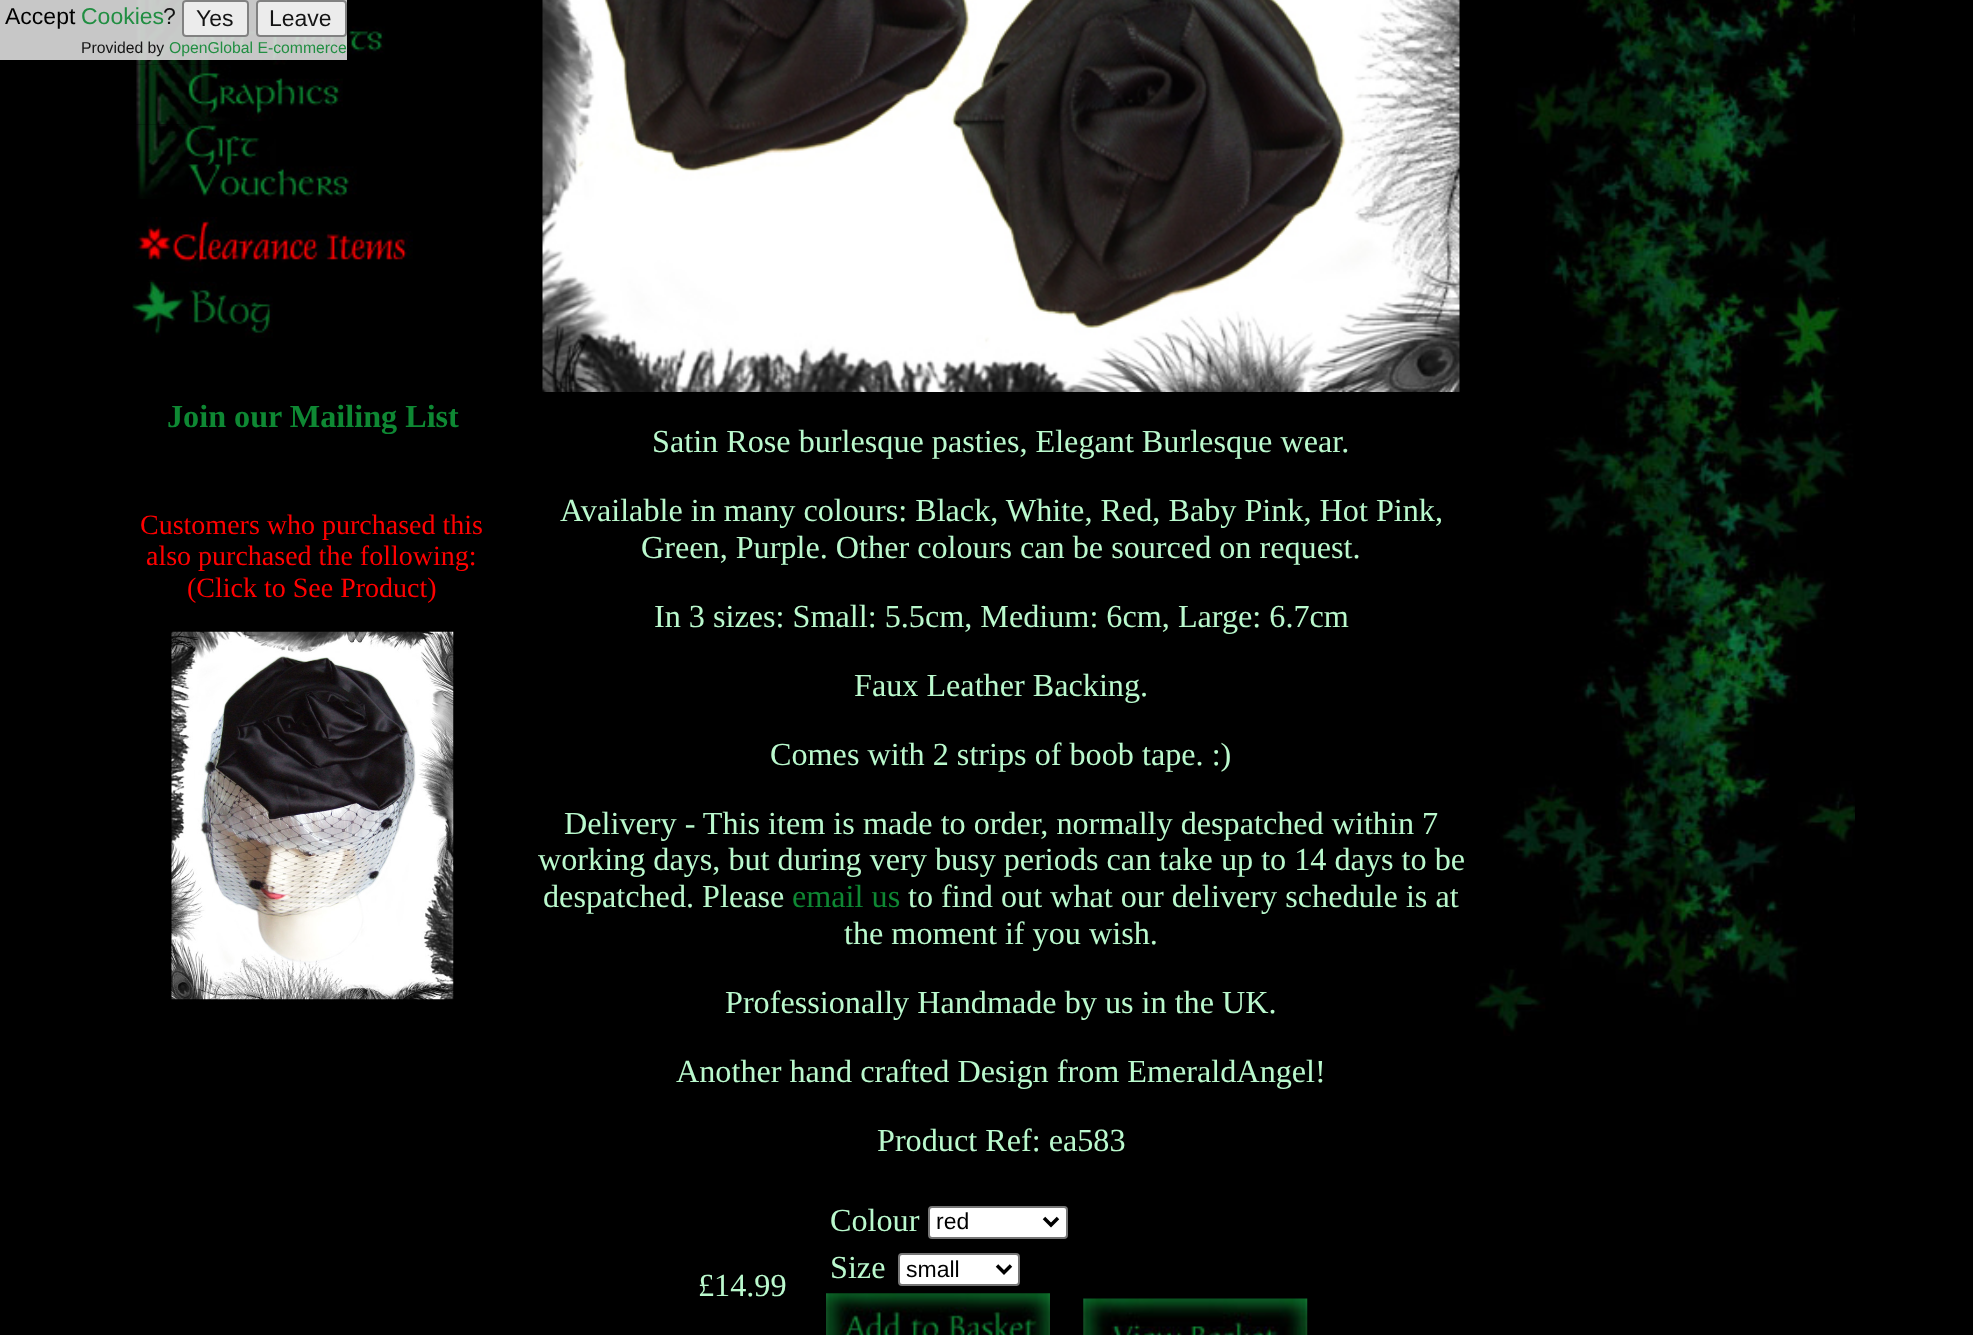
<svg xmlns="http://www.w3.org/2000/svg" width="1973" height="1335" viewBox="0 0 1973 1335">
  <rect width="100%" height="100%" fill="#000"/>
  <image x="136" y="0" width="137" height="13" href="img/2.png"/>
  <image x="136" y="12" width="249" height="53" href="img/3.png"/>
  <path d="M0 0h347v60H0z" fill="#dddddde6"/>
  <rect x="182" width="67" height="37" rx="4" fill="#efefefe6"/>
  <rect x="183" y="1" width="65" height="35" rx="3" fill="none" stroke="#767676e6" stroke-width="2"/>
  <rect x="256" width="91" height="37" rx="4" fill="#efefefe6"/>
  <rect x="257" y="1" width="89" height="35" rx="3" fill="none" stroke="#767676e6" stroke-width="2"/>
  <image x="1475" y="0" width="380" height="1036" href="img/1.png"/>
  <image x="136" y="64" width="207" height="61" href="img/4.png"/>
  <image x="136" y="124" width="221" height="75" href="img/5.png"/>
  <image x="135" y="217" width="278" height="65" href="img/6.png"/>
  <image x="132" y="281" width="141" height="57" href="img/7.png"/>
  <image x="171" y="631" width="283" height="369" href="img/8.png"/>
  <image x="542" y="0" width="918" height="392" href="img/9.png"/>
  <rect x="929" y="1207" width="138" height="31" rx="3" fill="#fff" stroke="#767676" stroke-width="2"/>
  <path d="M1044 1218L1051 1225L1058 1218" fill="none" stroke="#000" stroke-width="3.5"/>
  <rect x="899" y="1254" width="120" height="31" rx="3" fill="#fff" stroke="#767676" stroke-width="2"/>
  <path d="M997 1265.5L1004 1272.5L1011 1265.5" fill="none" stroke="#000" stroke-width="3.5"/>
  <image x="826" y="1293" width="224" height="42" href="img/10.png"/>
  <image x="1083" y="1298" width="225" height="37" href="img/11.png"/>
  <text x="5" y="24" font-family="Liberation Sans" font-size="23" fill="#000">Accept</text>
  <text x="81" y="24" font-family="Liberation Sans" font-size="23" fill="#218e42">Cookies</text>
  <g font-family="Liberation Sans" font-size="23" fill="#141414">
    <text x="163" y="24">?</text>
    <text x="196" y="26">Yes</text>
    <text x="269" y="26">Leave</text>
  </g>
  <text x="81" y="53" font-family="Liberation Sans" font-size="15.75" fill="#141414">Provided by</text>
  <text x="169" y="53" font-family="Liberation Sans" font-size="15.75" fill="#218e42">OpenGlobal E-commerce</text>
  <text x="167" y="427" font-family="Liberation Serif" font-size="32.2" font-weight="bold" fill="#0e8833">Join our Mailing List</text>
  <g font-family="Liberation Serif" font-size="28" fill="#f00">
    <text x="140" y="534">Customers who purchased this</text>
    <text x="146" y="565">also purchased the following:</text>
    <text x="187" y="597">(Click to See Product)</text>
  </g>
  <g font-family="Liberation Serif" font-size="32.2" fill="#baf9cd">
    <text x="652" y="452">Satin Rose burlesque pasties, Elegant Burlesque wear.</text>
    <text x="560" y="521">Available in many colours: Black, White, Red, Baby Pink, Hot Pink,</text>
    <text x="641" y="558">Green, Purple. Other colours can be sourced on request.</text>
    <text x="654" y="627">In 3 sizes: Small: 5.5cm, Medium: 6cm, Large: 6.7cm</text>
    <text x="854" y="696">Faux Leather Backing.</text>
    <text x="770" y="765">Comes with 2 strips of boob tape. :)</text>
    <text x="564" y="834">Delivery - This item is made to order, normally despatched within 7</text>
    <text x="538" y="870">working days, but during very busy periods can take up to 14 days to be</text>
    <text x="543" y="907">despatched. Please</text>
  </g>
  <text x="792" y="907" font-family="Liberation Serif" font-size="32.2" fill="#0e8833">email us</text>
  <g font-family="Liberation Serif" font-size="32.2" fill="#baf9cd">
    <text x="908" y="907">to find out what our delivery schedule is at</text>
    <text x="844" y="944">the moment if you wish.</text>
    <text x="725" y="1013">Professionally Handmade by us in the UK.</text>
    <text x="676" y="1082">Another hand crafted Design from EmeraldAngel!</text>
    <text x="877" y="1151">Product Ref: ea583</text>
    <text x="830" y="1231">Colour</text>
  </g>
  <text x="936" y="1229" font-family="Liberation Sans" font-size="23" fill="#000">red</text>
  <text x="830" y="1278" font-family="Liberation Serif" font-size="32.2" fill="#baf9cd">Size</text>
  <text x="906" y="1277" font-family="Liberation Sans" font-size="23" fill="#000">small</text>
  <text x="698" y="1296" font-family="Liberation Serif" font-size="32.2" fill="#baf9cd">£14.99</text>
</svg>
